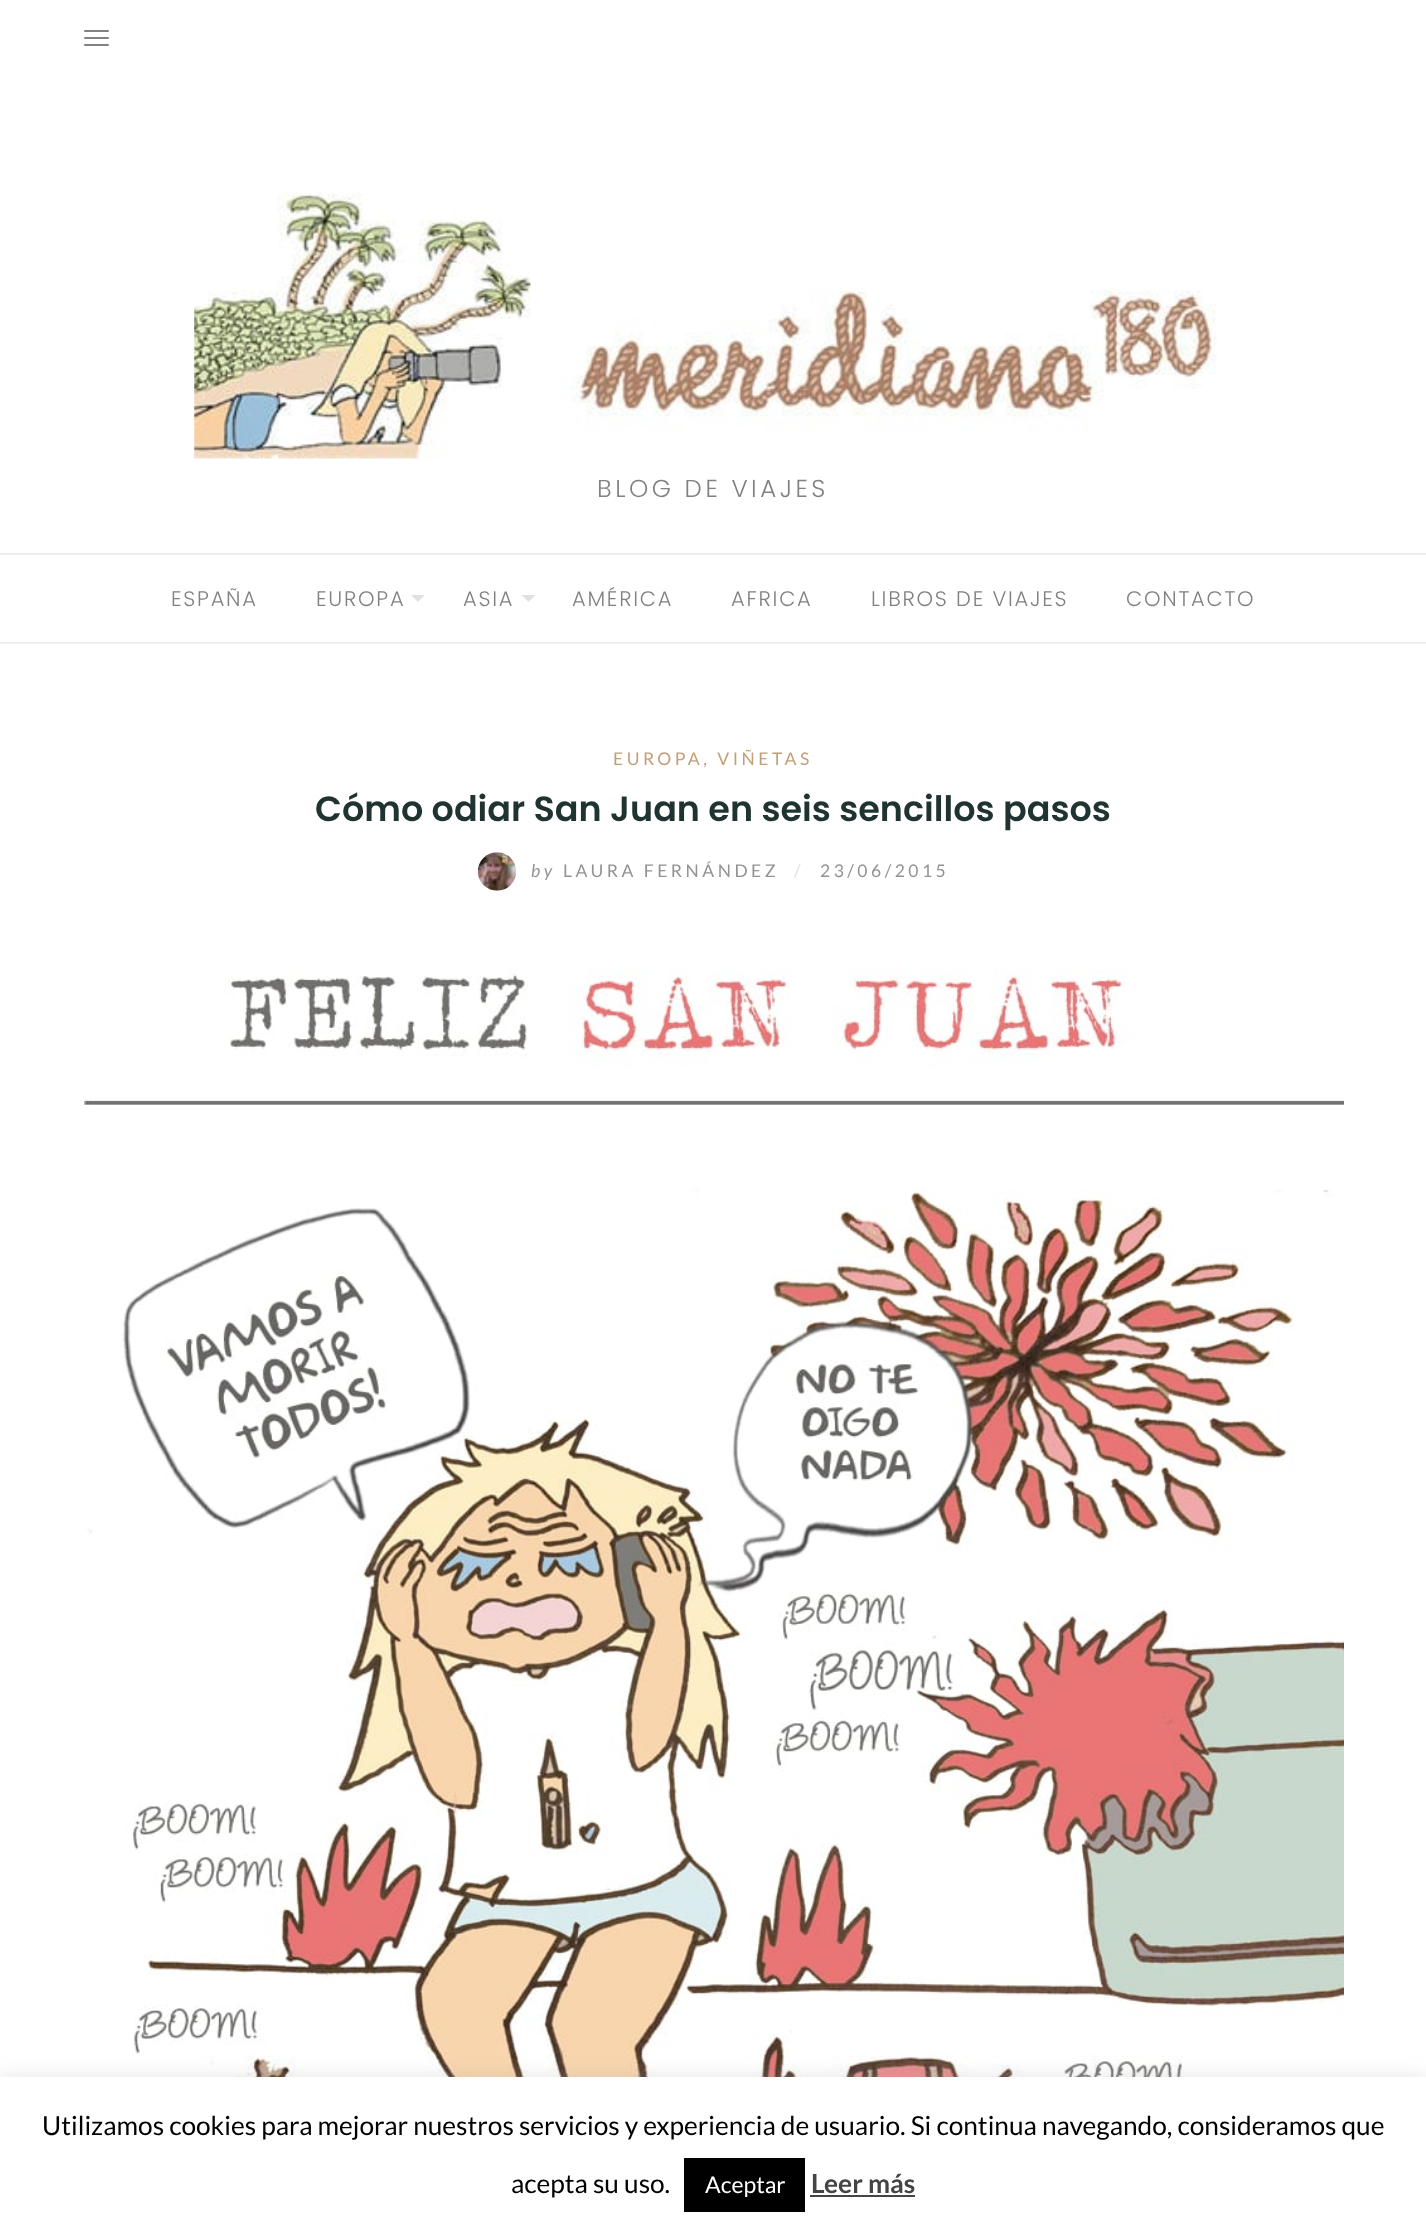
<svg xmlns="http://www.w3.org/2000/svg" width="1426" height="2233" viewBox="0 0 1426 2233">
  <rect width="100%" height="100%" fill="#fff"/>
  <rect x="84" y="37" width="25" height="2" rx="1" fill="#818181"/>
  <rect x="84" y="30" width="25" height="2" rx="1" fill="#818181"/>
  <rect x="84" y="44" width="25" height="2" rx="1" fill="#818181"/>
  <image x="194" y="192" width="1023" height="267" href="img/1.png"/>
  <path d="M0 553h1426v2H0z" fill="#eee"/>
  <path d="M0 642h1426v2H0z" fill="#eee"/>
  <path d="M411 595H425L418 602Z" fill="#e1e1e1"/>
  <path d="M521.5 595H535.5L528.5 602Z" fill="#e1e1e1"/>
  <image x="477" y="852" width="39" height="39" href="img/2.png"/>
  <image x="84" y="969" width="1260" height="1108" href="img/3.png"/>
  <path d="M0 2076h1426v155H0z" fill="#acabab4d" filter="blur(9px)"/>
  <path d="M0 2077h1426v156H0z" fill="#fff"/>
  <path d="M684 2158h121v54H684z" fill="#000"/>
  <path d="M810 2195h105v2H810z" fill="#444"/>
  <text x="597" y="497" font-family="Poppins" font-size="24.5" font-weight="300" letter-spacing="3.5" fill="#818181">BLOG DE VIAJES</text>
  <g font-family="Poppins" font-size="21" font-weight="300" letter-spacing="1.75" fill="#818181">
    <text x="171" y="606">ESPAÑA</text>
    <text x="316" y="606">EUROPA</text>
    <text x="463" y="606">ASIA</text>
    <text x="572" y="606">AMÉRICA</text>
    <text x="731" y="606">AFRICA</text>
    <text x="871" y="606">LIBROS DE VIAJES</text>
    <text x="1126" y="606">CONTACTO</text>
  </g>
  <text x="613" y="765" font-family="Lato" font-size="17.5" letter-spacing="3.5" fill="#c39f76">EUROPA, VIÑETAS</text>
  <text x="315" y="821" font-family="Poppins" font-size="35" font-weight="600" fill="#1f3331">Cómo odiar San Juan en seis sencillos pasos</text>
  <text x="531" y="877" font-family="Lato" font-size="17.5" font-style="italic" letter-spacing="3.5" fill="#939393">by</text>
  <text x="563" y="877" font-family="Lato" font-size="17.5" letter-spacing="3.5" fill="#939393">LAURA FERNÁNDEZ</text>
  <text x="794" y="877" font-family="Lato" font-size="17.5" letter-spacing="3.5" fill="#e1e1e1">/</text>
  <text x="820" y="877" font-family="Lato" font-size="17.5" letter-spacing="3.5" fill="#939393">23/06/2015</text>
  <g font-family="Lato" font-size="26.25" fill="#000">
    <text x="42" y="2135">Utilizamos cookies para mejorar nuestros servicios y experiencia de usuario. Si continua navegando, consideramos que</text>
    <text x="511" y="2193">acepta su uso.</text>
  </g>
  <text x="705" y="2193" font-family="Lato" font-size="23" fill="#fff">Aceptar</text>
  <text x="811" y="2193" font-family="Lato" font-size="26.25" font-weight="bold" fill="#444">Leer más</text>
</svg>
